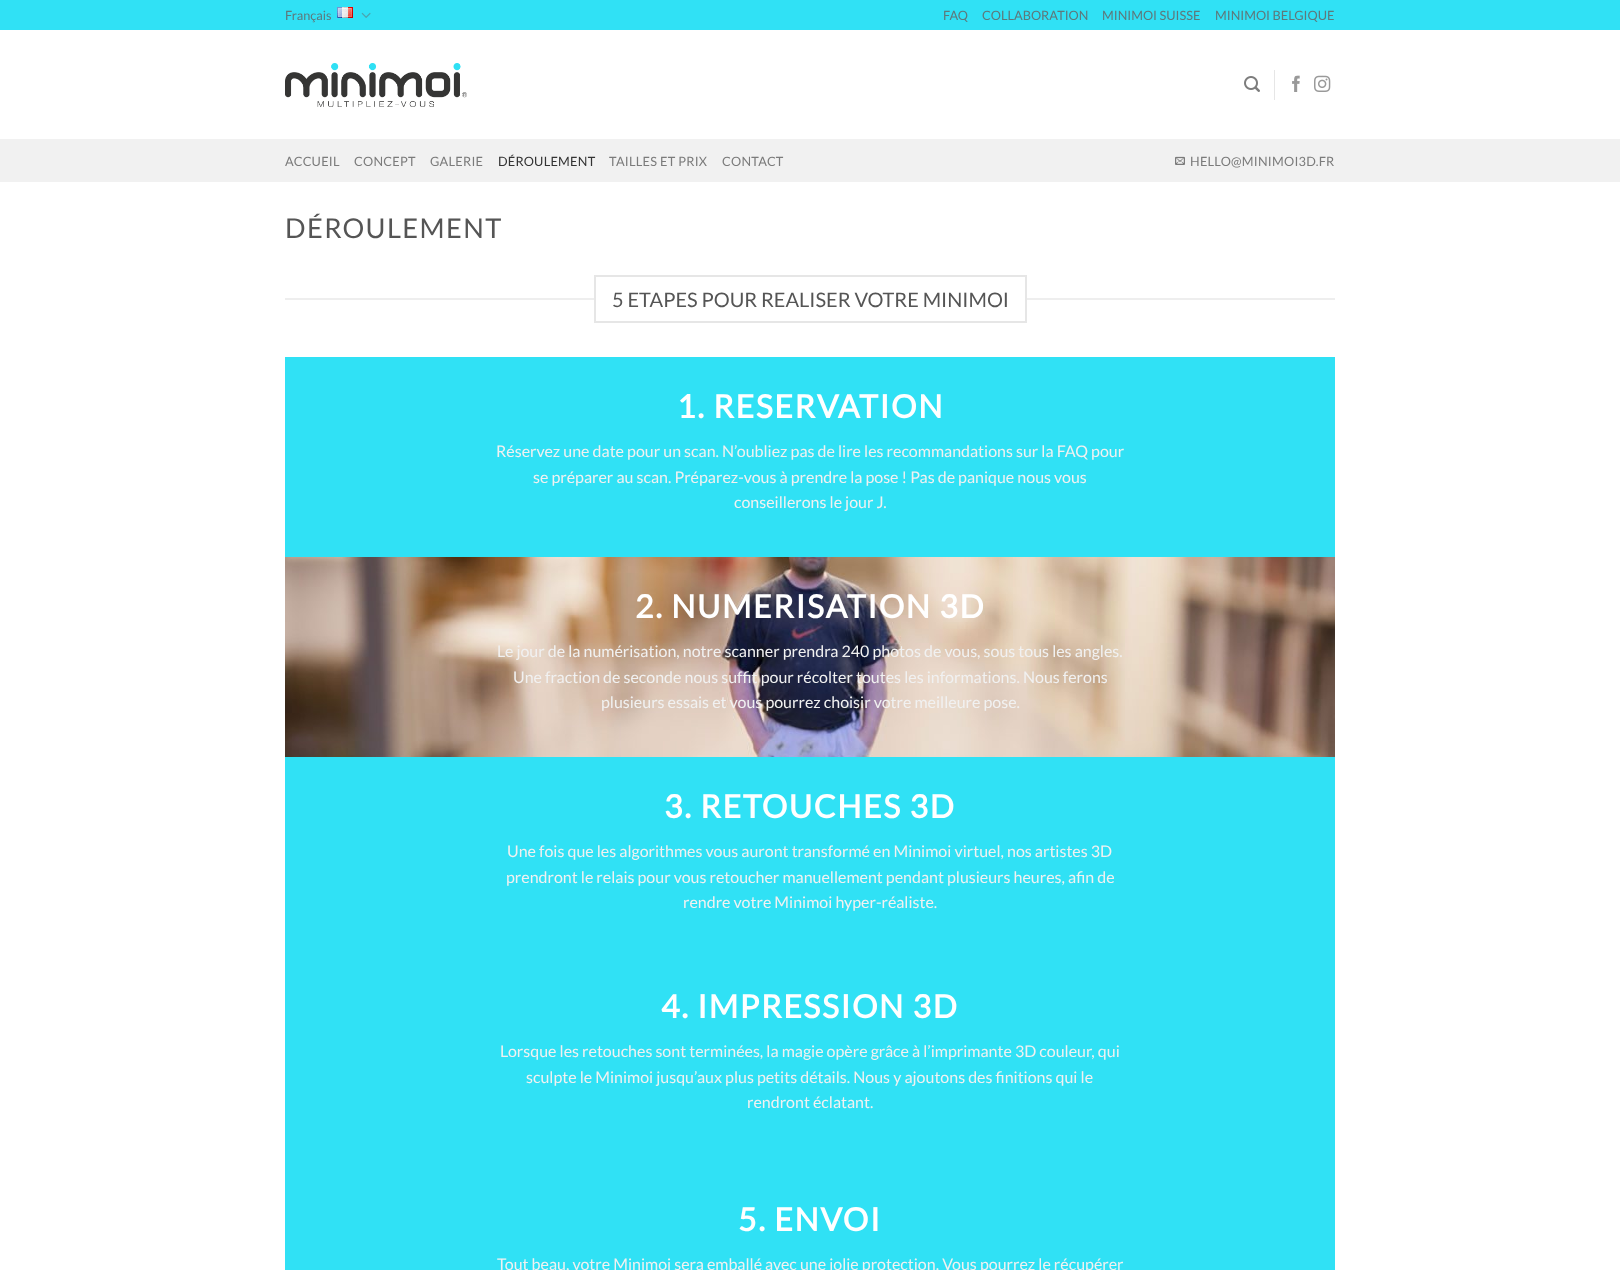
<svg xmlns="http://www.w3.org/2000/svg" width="1620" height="1270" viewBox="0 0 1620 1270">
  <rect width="100%" height="100%" fill="#fff"/>
  <path d="M0 0h1620v30H0z" fill="#30e1f5"/>
  <image x="337" y="7" width="16" height="11" href="img/1.png"/>
  <image x="361" y="12" width="10" height="6" href="img/2.png"/>
  <image x="285" y="63" width="182" height="44" href="img/3.png"/>
  <image x="1244" y="76" width="16" height="16" href="img/4.png"/>
  <path d="M1274 70h1v30H1274z" fill="#e6e6e6"/>
  <image x="1292" y="75" width="8" height="17" href="img/5.png"/>
  <image x="1314" y="75" width="17" height="17" href="img/6.png"/>
  <path d="M0 139h1620v43H0z" fill="#f1f1f1"/>
  <image x="1175" y="156" width="10" height="9" href="img/7.png"/>
  <path d="M285 298h309v2H285z" fill="#eee"/>
  <path d="M595 276h431v46H595z" fill="none" stroke="#e6e6e6" stroke-width="2"/>
  <path d="M1027 298h308v2H1027z" fill="#eee"/>
  <path d="M285 357h1050v200H285z" fill="#30e1f5"/>
  <image x="285" y="557" width="1050" height="200" href="img/8.png"/>
  <path d="M285 757h1050v513H285z" fill="#30e1f5"/>
  <g font-family="Lato" font-size="12.75" fill="#5e787b">
    <text x="285" y="20">Français</text>
    <text x="943" y="20">FAQ</text>
    <text x="982" y="20">COLLABORATION</text>
    <text x="1102" y="20">MINIMOI SUISSE</text>
    <text x="1215" y="20">MINIMOI BELGIQUE</text>
  </g>
  <g font-family="Lato" font-size="12.75" letter-spacing="0.25" fill="#7b7b7b">
    <text x="285" y="166">ACCUEIL</text>
    <text x="354" y="166">CONCEPT</text>
    <text x="430" y="166">GALERIE</text>
  </g>
  <text x="498" y="166" font-family="Lato" font-size="12.75" letter-spacing="0.25" fill="#333">DÉROULEMENT</text>
  <g font-family="Lato" font-size="12.75" letter-spacing="0.25" fill="#7b7b7b">
    <text x="609" y="166">TAILLES ET PRIX</text>
    <text x="722" y="166">CONTACT</text>
    <text x="1190" y="166">HELLO@MINIMOI3D.FR</text>
  </g>
  <text x="285" y="238" font-family="Lato" font-size="27.25" letter-spacing="1.4" fill="#555">DÉROULEMENT</text>
  <text x="612" y="307" font-family="Lato" font-size="20" fill="#555">5 ETAPES POUR REALISER VOTRE MINIMOI</text>
  <text x="677" y="418" font-family="Lato" font-size="32" font-weight="bold" letter-spacing="1.6" fill="#fff">1. RESERVATION</text>
  <g font-family="Lato" font-size="16" fill="#f1f1f1">
    <text x="496" y="457">Réservez une date pour un scan. N’oubliez pas de lire les recommandations sur la FAQ pour</text>
    <text x="533" y="483">se préparer au scan. Préparez-vous à prendre la pose ! Pas de panique nous vous</text>
    <text x="734" y="508">conseillerons le jour J.</text>
  </g>
  <text x="635" y="618" font-family="Lato" font-size="32" font-weight="bold" letter-spacing="1.6" fill="#fff">2. NUMERISATION 3D</text>
  <g font-family="Lato" font-size="16" fill="#f1f1f1">
    <text x="497" y="657">Le jour de la numérisation, notre scanner prendra 240 photos de vous, sous tous les angles.</text>
    <text x="513" y="683">Une fraction de seconde nous suffit pour récolter toutes les informations. Nous ferons</text>
    <text x="601" y="708">plusieurs essais et vous pourrez choisir votre meilleure pose.</text>
  </g>
  <text x="664" y="818" font-family="Lato" font-size="32" font-weight="bold" letter-spacing="1.6" fill="#fff">3. RETOUCHES 3D</text>
  <g font-family="Lato" font-size="16" fill="#f1f1f1">
    <text x="507" y="857">Une fois que les algorithmes vous auront transformé en Minimoi virtuel, nos artistes 3D</text>
    <text x="506" y="883">prendront le relais pour vous retoucher manuellement pendant plusieurs heures, afin de</text>
    <text x="683" y="908">rendre votre Minimoi hyper-réaliste.</text>
  </g>
  <text x="661" y="1018" font-family="Lato" font-size="32" font-weight="bold" letter-spacing="1.6" fill="#fff">4. IMPRESSION 3D</text>
  <g font-family="Lato" font-size="16" fill="#f1f1f1">
    <text x="500" y="1057">Lorsque les retouches sont terminées, la magie opère grâce à l’imprimante 3D couleur, qui</text>
    <text x="526" y="1083">sculpte le Minimoi jusqu’aux plus petits détails. Nous y ajoutons des finitions qui le</text>
    <text x="747" y="1108">rendront éclatant.</text>
  </g>
  <text x="738" y="1231" font-family="Lato" font-size="32" font-weight="bold" letter-spacing="1.6" fill="#fff">5. ENVOI</text>
  <text x="497" y="1270" font-family="Lato" font-size="16" fill="#f1f1f1">Tout beau, votre Minimoi sera emballé avec une jolie protection. Vous pourrez le récupérer</text>
</svg>
